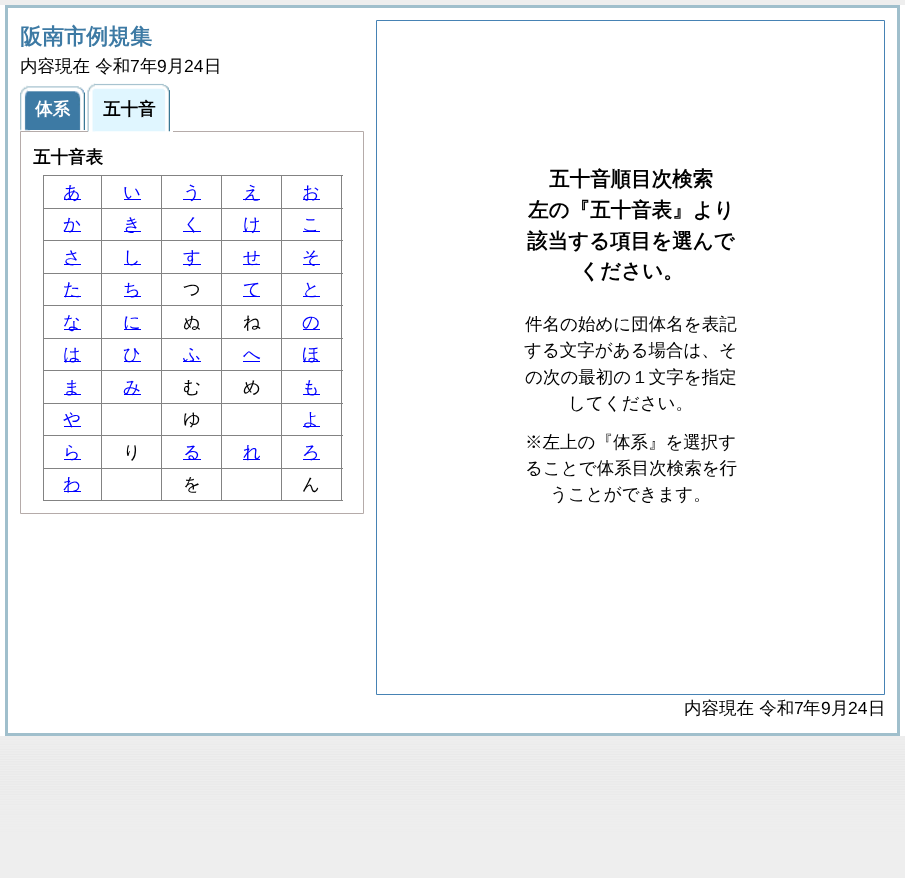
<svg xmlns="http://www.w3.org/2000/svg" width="905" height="878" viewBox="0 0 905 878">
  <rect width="100%" height="100%" fill="#fff"/>
  <image x="0" y="0" width="905" height="878" href="img/1.png"/>
  <path d="M0 5h905v731H0z" fill="#fff"/>
  <path d="M6.5 6.5h892v728H6.5z" fill="none" stroke="#a0bfcc" stroke-width="3"/>
  <image x="20" y="84" width="65" height="47" href="img/2.png"/>
  <image x="27" y="84" width="58" height="46" href="img/3.png"/>
  <path d="M20.5 131.5h343v382H20.5z" fill="none" stroke="#b5aba9"/>
  <path d="M88 131h85v1H88z" fill="#fff"/>
  <image x="87" y="83" width="9" height="49" href="img/4.png"/>
  <image x="95" y="83" width="75" height="49" href="img/5.png"/>
  <path d="M281 175h62v1H281z" fill="#838383"/>
  <path d="M281 208h62v1H281z" fill="#838383"/>
  <path d="M281 240h62v1H281z" fill="#838383"/>
  <path d="M281 273h62v1H281z" fill="#838383"/>
  <path d="M281 305h62v1H281z" fill="#838383"/>
  <path d="M281 338h62v1H281z" fill="#838383"/>
  <path d="M281 370h62v1H281z" fill="#838383"/>
  <path d="M281 403h62v1H281z" fill="#838383"/>
  <path d="M281 435h62v1H281z" fill="#838383"/>
  <path d="M281 468h62v1H281z" fill="#838383"/>
  <path d="M341 468h1v33H341z" fill="#838383"/>
  <path d="M281 500h62v1H281z" fill="#838383"/>
  <path d="M281 468h1v33H281z" fill="#838383"/>
  <path d="M221 468h62v1H221z" fill="#838383"/>
  <path d="M281 435h1v34H281z" fill="#838383"/>
  <path d="M221 435h62v1H221z" fill="#838383"/>
  <path d="M281 403h1v33H281z" fill="#838383"/>
  <path d="M221 403h62v1H221z" fill="#838383"/>
  <path d="M281 370h1v34H281z" fill="#838383"/>
  <path d="M221 370h62v1H221z" fill="#838383"/>
  <path d="M281 338h1v33H281z" fill="#838383"/>
  <path d="M221 338h62v1H221z" fill="#838383"/>
  <path d="M281 305h1v34H281z" fill="#838383"/>
  <path d="M221 305h62v1H221z" fill="#838383"/>
  <path d="M281 273h1v33H281z" fill="#838383"/>
  <path d="M221 273h62v1H221z" fill="#838383"/>
  <path d="M281 240h1v34H281z" fill="#838383"/>
  <path d="M221 240h62v1H221z" fill="#838383"/>
  <path d="M281 208h1v33H281z" fill="#838383"/>
  <path d="M221 208h62v1H221z" fill="#838383"/>
  <path d="M281 175h1v34H281z" fill="#838383"/>
  <path d="M221 175h62v1H221z" fill="#838383"/>
  <path d="M221 500h62v1H221z" fill="#838383"/>
  <path d="M221 468h1v33H221z" fill="#838383"/>
  <path d="M161 468h62v1H161z" fill="#838383"/>
  <path d="M221 435h1v34H221z" fill="#838383"/>
  <path d="M161 435h62v1H161z" fill="#838383"/>
  <path d="M221 403h1v33H221z" fill="#838383"/>
  <path d="M161 403h62v1H161z" fill="#838383"/>
  <path d="M221 370h1v34H221z" fill="#838383"/>
  <path d="M161 370h62v1H161z" fill="#838383"/>
  <path d="M221 338h1v33H221z" fill="#838383"/>
  <path d="M161 338h62v1H161z" fill="#838383"/>
  <path d="M221 305h1v34H221z" fill="#838383"/>
  <path d="M161 305h62v1H161z" fill="#838383"/>
  <path d="M221 273h1v33H221z" fill="#838383"/>
  <path d="M161 273h62v1H161z" fill="#838383"/>
  <path d="M221 240h1v34H221z" fill="#838383"/>
  <path d="M161 240h62v1H161z" fill="#838383"/>
  <path d="M221 208h1v33H221z" fill="#838383"/>
  <path d="M161 208h62v1H161z" fill="#838383"/>
  <path d="M221 175h1v34H221z" fill="#838383"/>
  <path d="M161 175h62v1H161z" fill="#838383"/>
  <path d="M161 500h62v1H161z" fill="#838383"/>
  <path d="M161 468h1v33H161z" fill="#838383"/>
  <path d="M101 468h62v1H101z" fill="#838383"/>
  <path d="M161 435h1v34H161z" fill="#838383"/>
  <path d="M101 435h62v1H101z" fill="#838383"/>
  <path d="M161 403h1v33H161z" fill="#838383"/>
  <path d="M101 403h62v1H101z" fill="#838383"/>
  <path d="M161 370h1v34H161z" fill="#838383"/>
  <path d="M101 370h62v1H101z" fill="#838383"/>
  <path d="M161 338h1v33H161z" fill="#838383"/>
  <path d="M101 338h62v1H101z" fill="#838383"/>
  <path d="M161 305h1v34H161z" fill="#838383"/>
  <path d="M101 305h62v1H101z" fill="#838383"/>
  <path d="M161 273h1v33H161z" fill="#838383"/>
  <path d="M101 273h62v1H101z" fill="#838383"/>
  <path d="M161 240h1v34H161z" fill="#838383"/>
  <path d="M101 240h62v1H101z" fill="#838383"/>
  <path d="M161 208h1v33H161z" fill="#838383"/>
  <path d="M101 208h62v1H101z" fill="#838383"/>
  <path d="M161 175h1v34H161z" fill="#838383"/>
  <path d="M101 175h62v1H101z" fill="#838383"/>
  <path d="M101 500h62v1H101z" fill="#838383"/>
  <path d="M101 468h1v33H101z" fill="#838383"/>
  <path d="M43 468h60v1H43z" fill="#838383"/>
  <path d="M101 435h1v34H101z" fill="#838383"/>
  <path d="M43 435h60v1H43z" fill="#838383"/>
  <path d="M101 403h1v33H101z" fill="#838383"/>
  <path d="M43 403h60v1H43z" fill="#838383"/>
  <path d="M101 370h1v34H101z" fill="#838383"/>
  <path d="M43 370h60v1H43z" fill="#838383"/>
  <path d="M101 338h1v33H101z" fill="#838383"/>
  <path d="M43 338h60v1H43z" fill="#838383"/>
  <path d="M101 305h1v34H101z" fill="#838383"/>
  <path d="M43 305h60v1H43z" fill="#838383"/>
  <path d="M101 273h1v33H101z" fill="#838383"/>
  <path d="M43 273h60v1H43z" fill="#838383"/>
  <path d="M101 240h1v34H101z" fill="#838383"/>
  <path d="M43 240h60v1H43z" fill="#838383"/>
  <path d="M101 208h1v33H101z" fill="#838383"/>
  <path d="M43 208h60v1H43z" fill="#838383"/>
  <path d="M101 175h1v34H101z" fill="#838383"/>
  <path d="M43 175h60v1H43z" fill="#838383"/>
  <path d="M43 500h60v1H43z" fill="#838383"/>
  <path d="M43 468h1v33H43z" fill="#838383"/>
  <path d="M43 435h1v34H43z" fill="#838383"/>
  <path d="M43 403h1v33H43z" fill="#838383"/>
  <path d="M43 370h1v34H43z" fill="#838383"/>
  <path d="M43 338h1v33H43z" fill="#838383"/>
  <path d="M43 305h1v34H43z" fill="#838383"/>
  <path d="M43 273h1v33H43z" fill="#838383"/>
  <path d="M43 240h1v34H43z" fill="#838383"/>
  <path d="M43 208h1v33H43z" fill="#838383"/>
  <path d="M43 175h1v34H43z" fill="#838383"/>
  <path d="M64 199h17v1H64z" fill="#00f"/>
  <path d="M124 199h17v1H124z" fill="#00f"/>
  <path d="M183 199h18v1H183z" fill="#00f"/>
  <path d="M243 199h17v1H243z" fill="#00f"/>
  <path d="M341 435h1v34H341z" fill="#838383"/>
  <path d="M341 403h1v33H341z" fill="#838383"/>
  <path d="M341 370h1v34H341z" fill="#838383"/>
  <path d="M341 338h1v33H341z" fill="#838383"/>
  <path d="M341 305h1v34H341z" fill="#838383"/>
  <path d="M341 273h1v33H341z" fill="#838383"/>
  <path d="M341 240h1v34H341z" fill="#838383"/>
  <path d="M341 208h1v33H341z" fill="#838383"/>
  <path d="M341 175h1v34H341z" fill="#838383"/>
  <path d="M303 199h17v1H303z" fill="#00f"/>
  <path d="M64 231h17v1H64z" fill="#00f"/>
  <path d="M124 231h17v1H124z" fill="#00f"/>
  <path d="M183 231h18v1H183z" fill="#00f"/>
  <path d="M243 231h17v1H243z" fill="#00f"/>
  <path d="M303 231h17v1H303z" fill="#00f"/>
  <path d="M64 264h17v1H64z" fill="#00f"/>
  <path d="M124 264h17v1H124z" fill="#00f"/>
  <path d="M183 264h18v1H183z" fill="#00f"/>
  <path d="M243 264h17v1H243z" fill="#00f"/>
  <path d="M303 264h17v1H303z" fill="#00f"/>
  <path d="M64 296h17v1H64z" fill="#00f"/>
  <path d="M124 296h17v1H124z" fill="#00f"/>
  <path d="M243 296h17v1H243z" fill="#00f"/>
  <path d="M303 296h17v1H303z" fill="#00f"/>
  <path d="M64 329h17v1H64z" fill="#00f"/>
  <path d="M124 329h17v1H124z" fill="#00f"/>
  <path d="M303 329h17v1H303z" fill="#00f"/>
  <path d="M64 361h17v1H64z" fill="#00f"/>
  <path d="M124 361h17v1H124z" fill="#00f"/>
  <path d="M183 361h18v1H183z" fill="#00f"/>
  <path d="M243 361h17v1H243z" fill="#00f"/>
  <path d="M303 361h17v1H303z" fill="#00f"/>
  <path d="M64 394h17v1H64z" fill="#00f"/>
  <path d="M124 394h17v1H124z" fill="#00f"/>
  <path d="M303 394h17v1H303z" fill="#00f"/>
  <path d="M64 426h17v1H64z" fill="#00f"/>
  <path d="M303 426h17v1H303z" fill="#00f"/>
  <path d="M64 459h17v1H64z" fill="#00f"/>
  <path d="M183 459h18v1H183z" fill="#00f"/>
  <path d="M243 459h17v1H243z" fill="#00f"/>
  <path d="M303 459h17v1H303z" fill="#00f"/>
  <path d="M64 491h17v1H64z" fill="#00f"/>
  <path d="M376.5 20.5h508v674H376.5z" fill="none" stroke="#4682b4"/>
  <text x="20" y="44" font-family="WenQuanYi Zen Hei" font-size="22" font-weight="bold" fill="#3d7aa4">阪南市例規集</text>
  <text x="20" y="72" font-family="WenQuanYi Zen Hei" font-size="17.5" font-weight="500" fill="#000">内容現在 令和</text>
  <text x="130" y="72" font-family="Liberation Sans" font-size="17.5" fill="#000">7</text>
  <text x="140" y="72" font-family="WenQuanYi Zen Hei" font-size="17.5" font-weight="500" fill="#000">年</text>
  <text x="157" y="72" font-family="Liberation Sans" font-size="17.5" fill="#000">9</text>
  <text x="167" y="72" font-family="WenQuanYi Zen Hei" font-size="17.5" font-weight="500" fill="#000">月</text>
  <text x="184" y="72" font-family="Liberation Sans" font-size="17.5" fill="#000">24</text>
  <text x="204" y="72" font-family="WenQuanYi Zen Hei" font-size="17.5" font-weight="500" fill="#000">日</text>
  <text x="35" y="115" font-family="WenQuanYi Zen Hei" font-size="17.5" font-weight="bold" fill="#fff">体系</text>
  <g font-family="WenQuanYi Zen Hei" font-size="17.5" font-weight="bold" fill="#000">
    <text x="103" y="115">五十音</text>
    <text x="33" y="163">五十音表</text>
  </g>
  <g font-family="WenQuanYi Zen Hei" font-size="17.5" font-weight="500" fill="#00f">
    <text x="63" y="198">あ</text>
    <text x="123" y="198">い</text>
    <text x="183" y="198">う</text>
    <text x="243" y="198">え</text>
    <text x="302" y="198">お</text>
    <text x="63" y="230">か</text>
    <text x="123" y="230">き</text>
    <text x="183" y="230">く</text>
    <text x="243" y="230">け</text>
    <text x="302" y="230">こ</text>
    <text x="63" y="263">さ</text>
    <text x="123" y="263">し</text>
    <text x="183" y="263">す</text>
    <text x="243" y="263">せ</text>
    <text x="302" y="263">そ</text>
    <text x="63" y="295">た</text>
    <text x="123" y="295">ち</text>
  </g>
  <text x="183" y="295" font-family="WenQuanYi Zen Hei" font-size="17.5" font-weight="500" fill="#000">つ</text>
  <g font-family="WenQuanYi Zen Hei" font-size="17.5" font-weight="500" fill="#00f">
    <text x="243" y="295">て</text>
    <text x="302" y="295">と</text>
    <text x="63" y="328">な</text>
    <text x="123" y="328">に</text>
  </g>
  <g font-family="WenQuanYi Zen Hei" font-size="17.5" font-weight="500" fill="#000">
    <text x="183" y="328">ぬ</text>
    <text x="243" y="328">ね</text>
  </g>
  <g font-family="WenQuanYi Zen Hei" font-size="17.5" font-weight="500" fill="#00f">
    <text x="302" y="328">の</text>
    <text x="63" y="360">は</text>
    <text x="123" y="360">ひ</text>
    <text x="183" y="360">ふ</text>
    <text x="243" y="360">へ</text>
    <text x="302" y="360">ほ</text>
    <text x="63" y="393">ま</text>
    <text x="123" y="393">み</text>
  </g>
  <g font-family="WenQuanYi Zen Hei" font-size="17.5" font-weight="500" fill="#000">
    <text x="183" y="393">む</text>
    <text x="243" y="393">め</text>
  </g>
  <g font-family="WenQuanYi Zen Hei" font-size="17.5" font-weight="500" fill="#00f">
    <text x="302" y="393">も</text>
    <text x="63" y="425">や</text>
  </g>
  <text x="183" y="425" font-family="WenQuanYi Zen Hei" font-size="17.5" font-weight="500" fill="#000">ゆ</text>
  <g font-family="WenQuanYi Zen Hei" font-size="17.5" font-weight="500" fill="#00f">
    <text x="302" y="425">よ</text>
    <text x="63" y="458">ら</text>
  </g>
  <text x="123" y="458" font-family="WenQuanYi Zen Hei" font-size="17.5" font-weight="500" fill="#000">り</text>
  <g font-family="WenQuanYi Zen Hei" font-size="17.5" font-weight="500" fill="#00f">
    <text x="183" y="458">る</text>
    <text x="243" y="458">れ</text>
    <text x="302" y="458">ろ</text>
    <text x="63" y="490">わ</text>
  </g>
  <g font-family="WenQuanYi Zen Hei" font-size="17.5" font-weight="500" fill="#000">
    <text x="183" y="490">を</text>
    <text x="302" y="490">ん</text>
  </g>
  <g font-family="WenQuanYi Zen Hei" font-size="20.5" font-weight="bold" fill="#000">
    <text x="549" y="186">五十音順目次検索</text>
    <text x="528" y="217">左の『五十音表』より</text>
    <text x="527" y="248">該当する項目を選んで</text>
    <text x="579" y="278">ください。</text>
  </g>
  <g font-family="WenQuanYi Zen Hei" font-size="17.5" font-weight="500" fill="#000">
    <text x="525" y="330">件名の始めに団体名を表記</text>
    <text x="524" y="356">する文字がある場合は、そ</text>
    <text x="525" y="383">の次の最初の１文字を指定</text>
    <text x="568" y="409">してください。</text>
    <text x="525" y="448">※左上の『体系』を選択す</text>
    <text x="525" y="474">ることで体系目次検索を行</text>
    <text x="550" y="500">うことができます。</text>
    <text x="684" y="714">内容現在 令和</text>
  </g>
  <text x="794" y="714" font-family="Liberation Sans" font-size="17.5" fill="#000">7</text>
  <text x="803" y="714" font-family="WenQuanYi Zen Hei" font-size="17.5" font-weight="500" fill="#000">年</text>
  <text x="821" y="714" font-family="Liberation Sans" font-size="17.5" fill="#000">9</text>
  <text x="831" y="714" font-family="WenQuanYi Zen Hei" font-size="17.5" font-weight="500" fill="#000">月</text>
  <text x="848" y="714" font-family="Liberation Sans" font-size="17.5" fill="#000">24</text>
  <text x="868" y="714" font-family="WenQuanYi Zen Hei" font-size="17.5" font-weight="500" fill="#000">日</text>
</svg>
